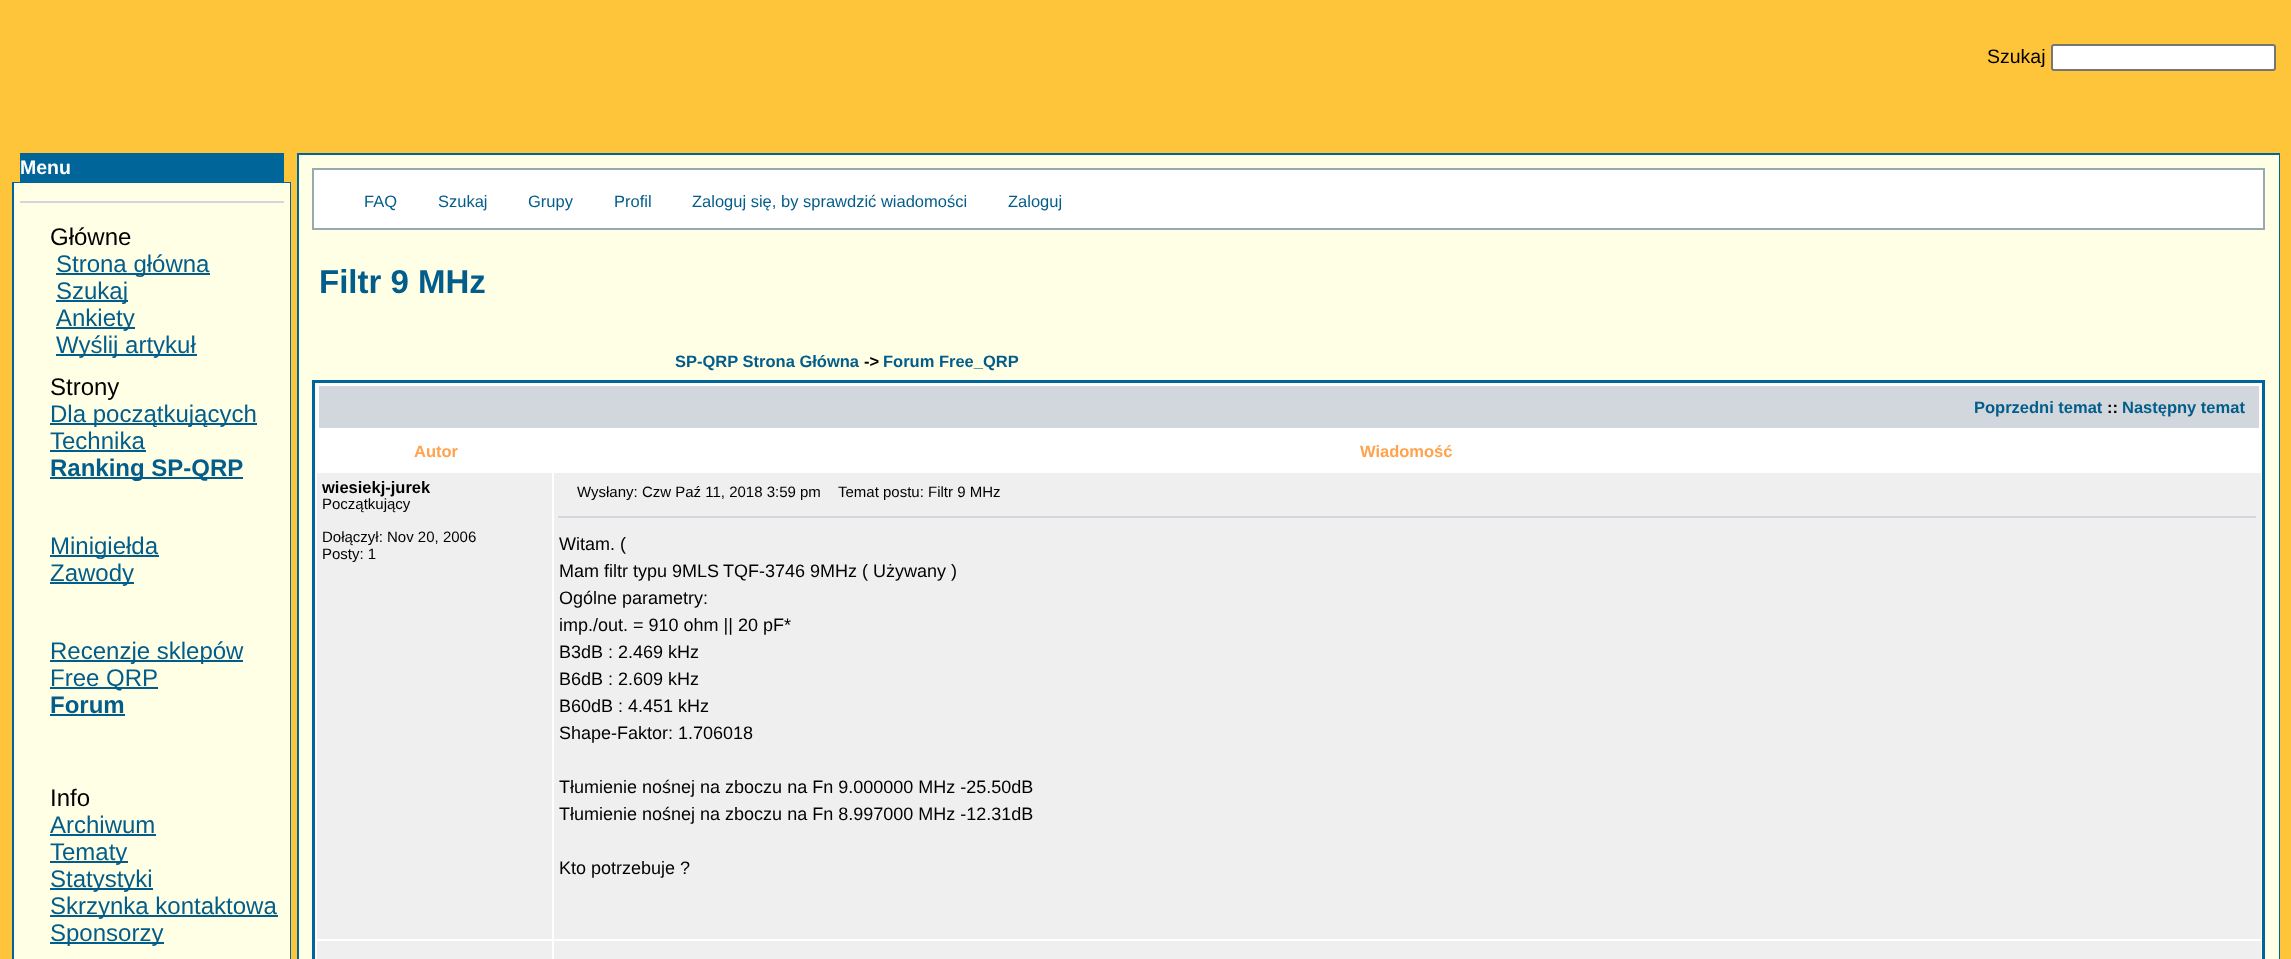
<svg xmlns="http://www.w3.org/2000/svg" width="2291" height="959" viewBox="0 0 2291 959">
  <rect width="100%" height="100%" fill="#ffc53a"/>
  <rect x="2052" y="45" width="223" height="25" rx="2" fill="#fff" stroke="#767676" stroke-width="2"/>
  <path d="M20 153h264v29H20z" fill="#069"/>
  <path d="M12 182h279v777H12z" fill="#069"/>
  <path d="M14 183h276v776H14z" fill="#ffffe6"/>
  <path d="M20 201h264v2H20z" fill="#d1d7dc"/>
  <path d="M56 273h154v2H56z" fill="#035d8a"/>
  <path d="M56 300h72v2H56z" fill="#035d8a"/>
  <path d="M56 327h79v2H56z" fill="#035d8a"/>
  <path d="M56 354h141v2H56z" fill="#035d8a"/>
  <path d="M50 423h207v2H50z" fill="#035d8a"/>
  <path d="M50 450h96v2H50z" fill="#035d8a"/>
  <path d="M50 477h193v2H50z" fill="#035d8a"/>
  <path d="M50 555h109v2H50z" fill="#035d8a"/>
  <path d="M50 582h84v2H50z" fill="#035d8a"/>
  <path d="M50 660h193v2H50z" fill="#035d8a"/>
  <path d="M50 687h108v2H50z" fill="#035d8a"/>
  <path d="M50 714h75v2H50z" fill="#035d8a"/>
  <path d="M50 834h106v2H50z" fill="#035d8a"/>
  <path d="M50 861h78v2H50z" fill="#035d8a"/>
  <path d="M50 888h103v2H50z" fill="#035d8a"/>
  <path d="M50 915h228v2H50z" fill="#035d8a"/>
  <path d="M50 942h114v2H50z" fill="#035d8a"/>
  <path d="M297 153h1983v806H297z" fill="#069"/>
  <path d="M299 155h1980v804H299z" fill="#ffffe6"/>
  <path d="M313 169h1951v60H313z" fill="#fff" stroke="#98aab1" stroke-width="2"/>
  <path d="M313.5 381.5h1950v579H313.5z" fill="#fff" stroke="#069" stroke-width="3"/>
  <path d="M319 386h1940v42H319z" fill="#d1d7dc"/>
  <path d="M317 473h235v466H317z" fill="#efefef"/>
  <path d="M554 473h1707v466H554z" fill="#efefef"/>
  <path d="M558 516h1698v2H558z" fill="#d1d7dc"/>
  <path d="M317 941h235v18H317z" fill="#efefef"/>
  <path d="M554 941h1707v18H554z" fill="#efefef"/>
  <text x="1987" y="63" font-family="Liberation Sans" font-size="19.5" fill="#000">Szukaj</text>
  <text x="20" y="174" font-family="Liberation Sans" font-size="19.5" font-weight="bold" fill="#fff">Menu</text>
  <text x="50" y="245" font-family="Liberation Sans" font-size="24" fill="#000">Główne</text>
  <g font-family="Liberation Sans" font-size="24" fill="#035d8a">
    <text x="56" y="272">Strona główna</text>
    <text x="56" y="299">Szukaj</text>
    <text x="56" y="326">Ankiety</text>
    <text x="56" y="353">Wyślij artykuł</text>
  </g>
  <text x="50" y="395" font-family="Liberation Sans" font-size="24" fill="#000">Strony</text>
  <g font-family="Liberation Sans" font-size="24" fill="#035d8a">
    <text x="50" y="422">Dla początkujących</text>
    <text x="50" y="449">Technika</text>
  </g>
  <text x="50" y="476" font-family="Liberation Sans" font-size="24" font-weight="bold" fill="#035d8a">Ranking SP-QRP</text>
  <g font-family="Liberation Sans" font-size="24" fill="#035d8a">
    <text x="50" y="554">Minigiełda</text>
    <text x="50" y="581">Zawody</text>
    <text x="50" y="659">Recenzje sklepów</text>
    <text x="50" y="686">Free QRP</text>
  </g>
  <text x="50" y="713" font-family="Liberation Sans" font-size="24" font-weight="bold" fill="#035d8a">Forum</text>
  <text x="50" y="806" font-family="Liberation Sans" font-size="24" fill="#000">Info</text>
  <g font-family="Liberation Sans" font-size="24" fill="#035d8a">
    <text x="50" y="833">Archiwum</text>
    <text x="50" y="860">Tematy</text>
    <text x="50" y="887">Statystyki</text>
    <text x="50" y="914">Skrzynka kontaktowa</text>
    <text x="50" y="941">Sponsorzy</text>
  </g>
  <g font-family="Liberation Sans" font-size="16.5" fill="#035d8a">
    <text x="364" y="207">FAQ</text>
    <text x="438" y="207">Szukaj</text>
    <text x="528" y="207">Grupy</text>
    <text x="614" y="207">Profil</text>
    <text x="692" y="207">Zaloguj się, by sprawdzić wiadomości</text>
    <text x="1008" y="207">Zaloguj</text>
  </g>
  <text x="319" y="293" font-family="Liberation Sans" font-size="33" font-weight="bold" fill="#035d8a">Filtr 9 MHz</text>
  <text x="675" y="367" font-family="Liberation Sans" font-size="16.5" font-weight="bold" fill="#035d8a">SP-QRP Strona Główna</text>
  <text x="864" y="367" font-family="Liberation Sans" font-size="16.5" font-weight="bold" fill="#000">-&gt;</text>
  <g font-family="Liberation Sans" font-size="16.5" font-weight="bold" fill="#035d8a">
    <text x="883" y="367">Forum Free_QRP</text>
    <text x="1974" y="413">Poprzedni temat</text>
  </g>
  <text x="2107" y="413" font-family="Liberation Sans" font-size="16.5" font-weight="bold" fill="#000">::</text>
  <text x="2122" y="413" font-family="Liberation Sans" font-size="16.5" font-weight="bold" fill="#035d8a">Następny temat</text>
  <g font-family="Liberation Sans" font-size="16.5" font-weight="bold" fill="#ffa34f">
    <text x="414" y="457">Autor</text>
    <text x="1360" y="457">Wiadomość</text>
  </g>
  <text x="322" y="493" font-family="Liberation Sans" font-size="16.5" font-weight="bold" fill="#000">wiesiekj-jurek</text>
  <g font-family="Liberation Sans" font-size="15" fill="#000">
    <text x="322" y="509">Początkujący</text>
    <text x="322" y="542">Dołączył: Nov 20, 2006</text>
    <text x="322" y="559">Posty: 1</text>
    <text x="577" y="497">Wysłany: Czw Paź 11, 2018 3:59 pm</text>
    <text x="838" y="497">Temat postu: Filtr 9 MHz</text>
  </g>
  <g font-family="Liberation Sans" font-size="18" fill="#000">
    <text x="559" y="550">Witam. (</text>
    <text x="559" y="577">Mam filtr typu 9MLS</text>
    <text x="723" y="577">TQF-3746 9MHz ( Używany )</text>
    <text x="559" y="604">Ogólne parametry:</text>
    <text x="559" y="631">imp./out. = 910 ohm || 20 pF*</text>
    <text x="559" y="658">B3dB : 2.469 kHz</text>
    <text x="559" y="685">B6dB : 2.609 kHz</text>
    <text x="559" y="712">B60dB : 4.451 kHz</text>
    <text x="559" y="739">Shape-Faktor: 1.706018</text>
    <text x="559" y="793">Tłumienie nośnej na zboczu na Fn 9.000000 MHz -25.50dB</text>
    <text x="559" y="820">Tłumienie nośnej na zboczu na Fn 8.997000 MHz -12.31dB</text>
    <text x="559" y="874">Kto potrzebuje ?</text>
  </g>
</svg>
